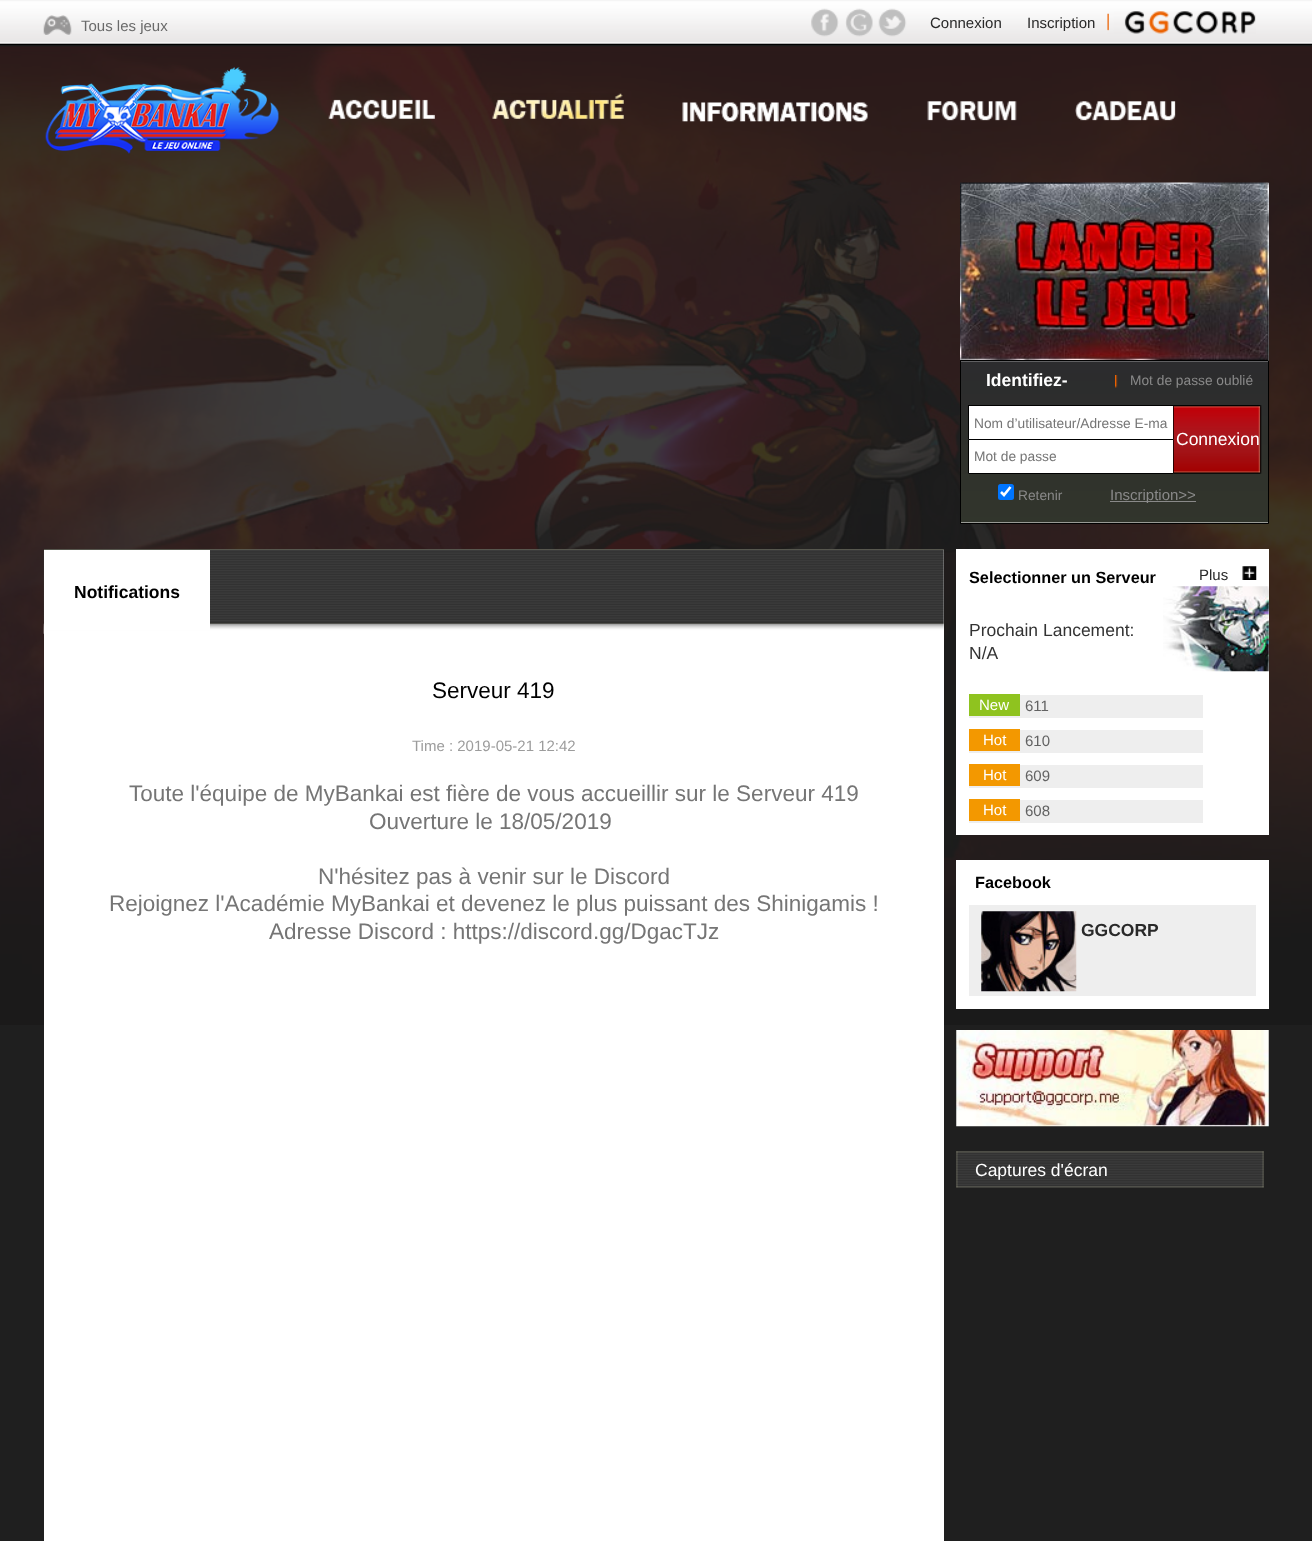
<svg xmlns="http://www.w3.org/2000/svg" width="1312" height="1541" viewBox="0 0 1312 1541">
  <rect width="100%" height="100%" fill="#000"/>
  <image x="0" y="0" width="1312" height="44" href="img/1.png"/>
  <image x="43" y="15" width="29" height="20" href="img/2.png"/>
  <image x="811" y="8" width="28" height="29" href="img/3.png"/>
  <image x="845" y="8" width="28" height="29" href="img/4.png"/>
  <image x="878" y="8" width="29" height="29" href="img/5.png"/>
  <image x="1107" y="11" width="149" height="23" href="img/6.png"/>
  <path d="M0 45h1312v1496H0z" fill="#1f1f1f"/>
  <image x="0" y="45" width="1312" height="980" href="img/7.png"/>
  <image x="45" y="67" width="234" height="87" href="img/8.png"/>
  <image x="328" y="99" width="107" height="20" href="img/9.png"/>
  <image x="492" y="93" width="132" height="26" href="img/10.png"/>
  <image x="682" y="102" width="186" height="20" href="img/11.png"/>
  <image x="927" y="101" width="90" height="20" href="img/12.png"/>
  <image x="1075" y="101" width="101" height="20" href="img/13.png"/>
  <path d="M961 183h308v340H961z" fill="#fff"/>
  <image x="960" y="182" width="309" height="178" href="img/14.png"/>
  <image x="961" y="361" width="307" height="162" href="img/15.png"/>
  <path d="M960.5 360.5h308v163H960.5z" fill="none" stroke="#000"/>
  <image x="1115" y="375" width="3" height="13" href="img/16.png"/>
  <path d="M969 406h204v33H969z" fill="#fff"/>
  <path d="M968 405h206v1H968z" fill="#000"/>
  <path d="M1173 405h1v34H1173z" fill="#000"/>
  <path d="M968 405h1v34H968z" fill="#000"/>
  <path d="M968.5 439.5h205v34H968.5z" fill="#fff" stroke="#000"/>
  <image x="1173" y="405" width="89" height="69" href="img/17.png"/>
  <rect x="998" y="484" width="16" height="16" rx="2.5" fill="#0075ff"/>
  <path d="M1001 492L1004 495L1010.5 487" fill="none" stroke="#fff" stroke-width="2.6"/>
  <path d="M1110 501h86v1H1110z" fill="#898989"/>
  <path d="M44 550h900v991H44z" fill="#fff"/>
  <image x="43" y="550" width="901" height="84" href="img/18.png"/>
  <path d="M44 549h900v1H44z" fill="#56564d"/>
  <path d="M44 550h166v80H44z" fill="#fff"/>
  <path d="M956 549h313v286H956z" fill="#fff"/>
  <image x="1163" y="586" width="106" height="86" href="img/19.png"/>
  <image x="1242" y="566" width="15" height="14" href="img/20.png"/>
  <path d="M969 695h234v23H969z" fill="#eee"/>
  <path d="M969 694h51v22H969z" fill="#8fc31f"/>
  <path d="M969 730h234v23H969z" fill="#eee"/>
  <path d="M969 729h51v22H969z" fill="#f39800"/>
  <path d="M969 765h234v23H969z" fill="#eee"/>
  <path d="M969 764h51v22H969z" fill="#f39800"/>
  <path d="M969 800h234v23H969z" fill="#eee"/>
  <path d="M969 799h51v22H969z" fill="#f39800"/>
  <path d="M956 860h313v149H956z" fill="#fff"/>
  <path d="M969 905h287v91H969z" fill="#eee"/>
  <image x="981" y="911" width="96" height="81" href="img/21.png"/>
  <image x="956" y="1030" width="313" height="97" href="img/22.png"/>
  <image x="956" y="1151" width="308" height="37" href="img/23.png"/>
  <text x="81" y="31" font-family="Liberation Sans" font-size="15" fill="#6a6a6a">Tous les jeux</text>
  <g font-family="Liberation Sans" font-size="15" fill="#292929">
    <text x="930" y="28">Connexion</text>
    <text x="1027" y="28">Inscription</text>
  </g>
  <text x="986" y="386" font-family="Liberation Sans" font-size="17.5" font-weight="bold" fill="#fff">Identifiez-</text>
  <text x="1130" y="385" font-family="Liberation Sans" font-size="13.75" fill="#898989">Mot de passe oublié</text>
  <text x="974" y="428" font-family="Liberation Sans" font-size="13.75" fill="#757575">Nom d’utilisateur/Adresse E-ma</text>
  <text x="1176" y="445" font-family="Liberation Sans" font-size="17.5" fill="#fff">Connexion</text>
  <text x="974" y="461" font-family="Liberation Sans" font-size="13.75" fill="#757575">Mot de passe</text>
  <text x="1018" y="500" font-family="Liberation Sans" font-size="13.75" fill="#898989">Retenir</text>
  <text x="1110" y="500" font-family="Liberation Sans" font-size="15" fill="#898989">Inscription&gt;&gt;</text>
  <text x="74" y="598" font-family="Liberation Sans" font-size="17.5" font-weight="bold" fill="#000">Notifications</text>
  <text x="432" y="698" font-family="Liberation Sans" font-size="22.5" fill="#000">Serveur 419</text>
  <text x="412" y="751" font-family="Liberation Sans" font-size="15" fill="#9c9c9c">Time : 2019-05-21 12:42</text>
  <g font-family="Liberation Sans" font-size="22.5" fill="#757575">
    <text x="129" y="801">Toute l'équipe de MyBankai est fière de vous accueillir sur le Serveur 419</text>
    <text x="369" y="829">Ouverture le 18/05/2019</text>
    <text x="318" y="884">N'hésitez pas à venir sur le Discord</text>
    <text x="109" y="911">Rejoignez l'Académie MyBankai et devenez le plus puissant des Shinigamis !</text>
    <text x="269" y="939">Adresse Discord : https://discord.gg/DgacTJz</text>
  </g>
  <text x="969" y="583" font-family="Liberation Sans" font-size="16.25" font-weight="bold" fill="#000">Selectionner un Serveur</text>
  <text x="1199" y="580" font-family="Liberation Sans" font-size="15" fill="#292929">Plus</text>
  <g font-family="Liberation Sans" font-size="17.5" fill="#333">
    <text x="969" y="636">Prochain Lancement:</text>
    <text x="969" y="659">N/A</text>
  </g>
  <text x="979" y="710" font-family="Liberation Sans" font-size="15" fill="#fff">New</text>
  <text x="1025" y="711" font-family="Liberation Sans" font-size="15" fill="#626262">611</text>
  <text x="983" y="745" font-family="Liberation Sans" font-size="15" fill="#fff">Hot</text>
  <text x="1025" y="746" font-family="Liberation Sans" font-size="15" fill="#626262">610</text>
  <text x="983" y="780" font-family="Liberation Sans" font-size="15" fill="#fff">Hot</text>
  <text x="1025" y="781" font-family="Liberation Sans" font-size="15" fill="#626262">609</text>
  <text x="983" y="815" font-family="Liberation Sans" font-size="15" fill="#fff">Hot</text>
  <text x="1025" y="816" font-family="Liberation Sans" font-size="15" fill="#626262">608</text>
  <text x="975" y="888" font-family="Liberation Sans" font-size="16.25" font-weight="bold" fill="#000">Facebook</text>
  <text x="1081" y="936" font-family="Liberation Sans" font-size="17.5" font-weight="bold" fill="#292929">GGCORP</text>
  <text x="975" y="1176" font-family="Liberation Sans" font-size="17.5" fill="#fff">Captures d'écran</text>
</svg>
